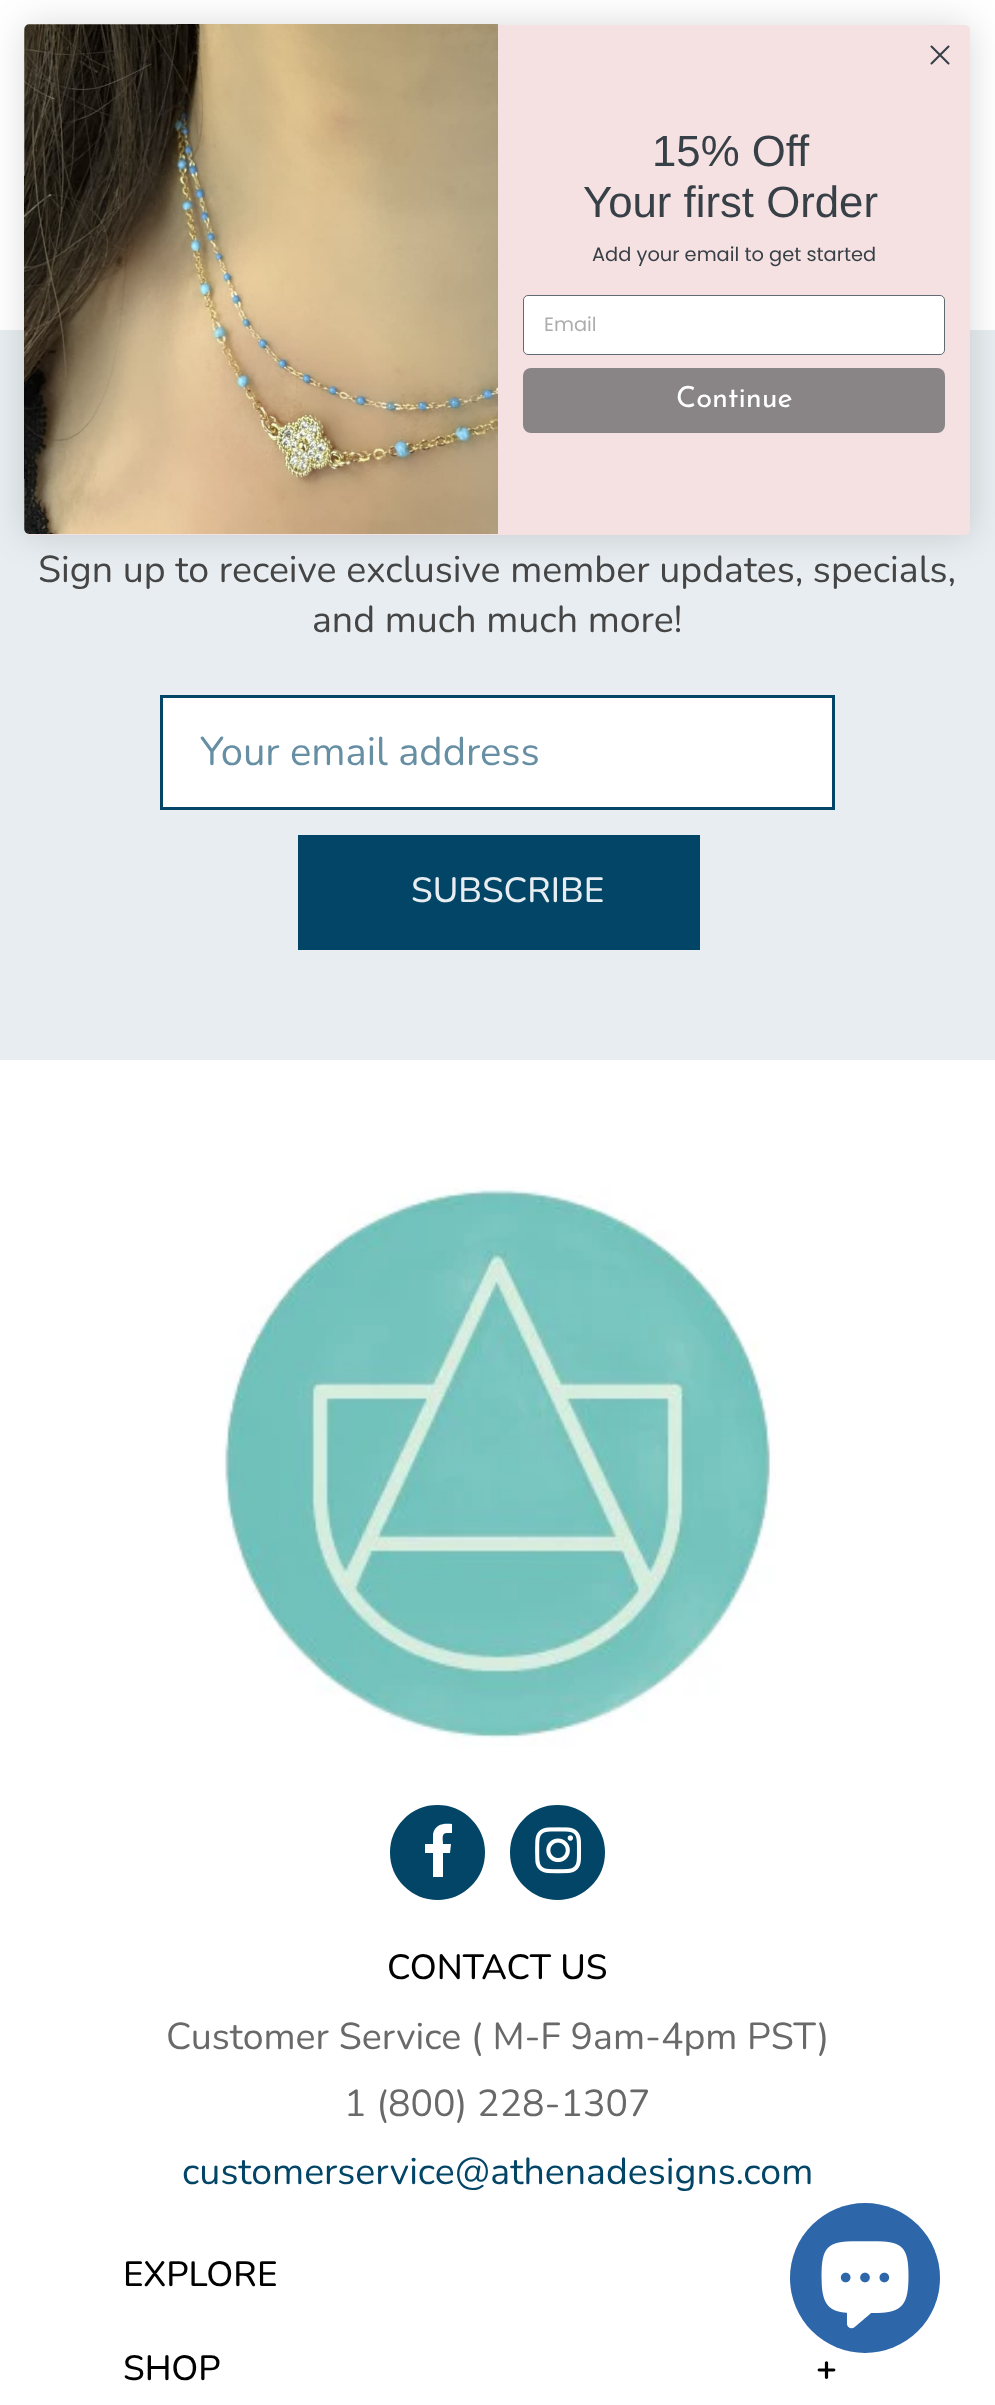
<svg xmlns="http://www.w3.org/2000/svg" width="995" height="2405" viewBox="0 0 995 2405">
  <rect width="100%" height="100%" fill="#fff"/>
  <path d="M0 330h995v730H0z" fill="#e7edf0"/>
  <rect x="25" y="25" width="945" height="510" rx="5" fill="#00000026" filter="blur(18px)"/>
  <rect x="25" y="25" width="945" height="510" rx="5" fill="#f5e1e1"/>
  <path d="M931.5 46.5L948.5 63.5M931.5 63.5L948.5 46.5Z" fill="none" stroke="#373f47" stroke-width="2.1" stroke-linecap="round" stroke-linejoin="round"/>
  <image x="24" y="24" width="474" height="510" href="img/1.png"/>
  <rect x="523.5" y="295.5" width="421" height="59" rx="4.5" fill="#fff" stroke="#606a72"/>
  <rect x="523" y="368" width="422" height="65" rx="8" fill="#898486"/>
  <path d="M161.5 696.5h672v112H161.5z" fill="#fff" stroke="#024567" stroke-width="3"/>
  <path d="M298 835h402v115H298z" fill="#024567"/>
  <image x="223" y="1187" width="553" height="560" href="img/2.png"/>
  <circle cx="437.5" cy="1852.5" r="45" fill="#024567" stroke="#024567" stroke-width="5"/>
  <path d="M447 1833C441 1833 443 1839 443 1844H451L450 1853H443V1877H433V1853H425V1844H433V1834C435 1824 444 1823 452 1824V1833Z" fill="#fff"/>
  <circle cx="557.5" cy="1852.5" r="45" fill="#024567" stroke="#024567" stroke-width="5"/>
  <image x="535" y="1827" width="47" height="47" href="img/3.png"/>
  <circle cx="865" cy="2278" r="75" fill="#2d66a9"/>
  <image x="821" y="2241" width="88" height="88" href="img/4.png"/>
  <g font-family="Liberation Sans" font-size="43.75" fill="#373f47">
    <text x="652" y="166">15% Off</text>
    <text x="583" y="217">Your first Order</text>
  </g>
  <text x="592" y="261" font-family="Poppins" font-size="19.4" fill="#373f47">Add your email to get started</text>
  <text x="544" y="331" font-family="Poppins" font-size="19.4" fill="#adadad">Email</text>
  <text x="676" y="407" font-family="Josefin Sans" font-size="29" font-weight="100" fill="#fff">Continue</text>
  <g font-family="Nunito" font-size="37.5" fill="#454545">
    <text x="38" y="582">Sign up to receive exclusive member updates, specials,</text>
    <text x="312" y="632">and much much more!</text>
  </g>
  <text x="200" y="765" font-family="Nunito" font-size="40" fill="#678fa4">Your email address</text>
  <text x="411" y="902" font-family="Nunito" font-size="35" font-weight="500" fill="#e7edf0">SUBSCRIBE</text>
  <text x="387" y="1979" font-family="Nunito" font-size="35" font-weight="500" fill="#000">CONTACT US</text>
  <g font-family="Nunito" font-size="37.5" fill="#696969">
    <text x="166" y="2049">Customer Service ( M-F 9am-4pm PST)</text>
    <text x="344" y="2116">1 (800) 228-1307</text>
  </g>
  <text x="182" y="2184" font-family="Nunito" font-size="37.5" fill="#024567">customerservice@athenadesigns.com</text>
  <g font-family="Nunito" font-size="35" font-weight="500" fill="#000">
    <text x="123" y="2286">EXPLORE</text>
    <text x="123" y="2380">SHOP</text>
  </g>
  <text x="816" y="2380" font-family="Nunito" font-size="35" font-weight="bold" fill="#000">+</text>
</svg>
